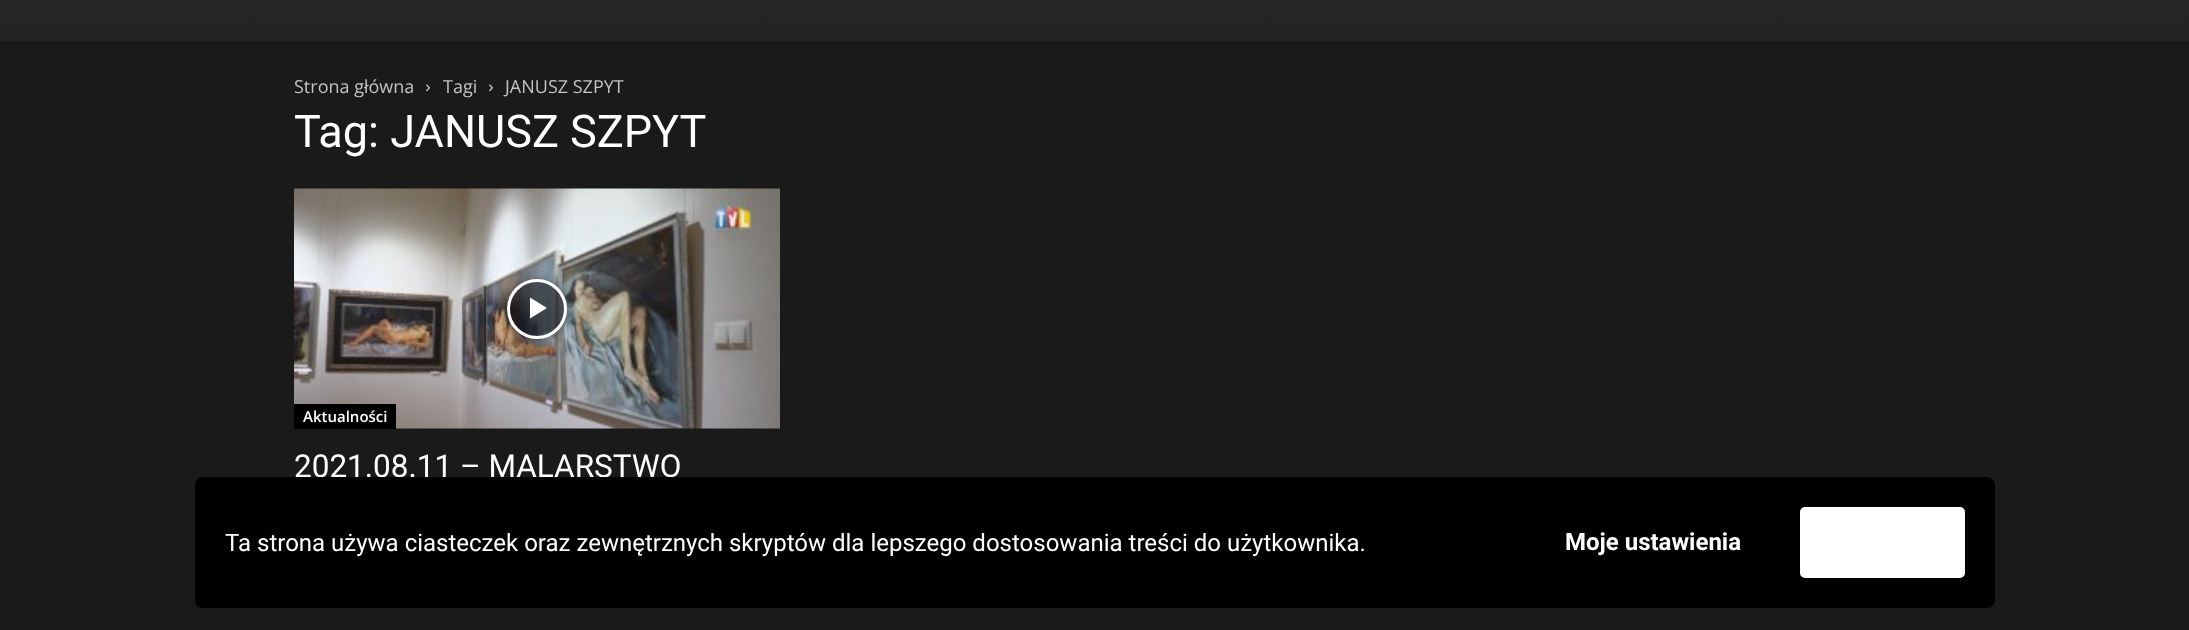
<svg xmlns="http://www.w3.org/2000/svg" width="2189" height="630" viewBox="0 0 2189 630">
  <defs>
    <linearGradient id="g1" gradientUnits="userSpaceOnUse" x1="1095" y1="-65" x2="1095" y2="41"><stop offset="0" stop-color="#303030"/><stop offset="1" stop-color="#222"/></linearGradient>
    <clipPath id="clip1"><path d="M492 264H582V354H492ZM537 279C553.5 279 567 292.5 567 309C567 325.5 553.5 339 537 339C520.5 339 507 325.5 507 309C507 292.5 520.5 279 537 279Z" clip-rule="evenodd"/></clipPath>
  </defs>
  <rect width="100%" height="100%" fill="#1a1a1a"/>
  <path d="M0 0h2189v41H0z" fill="url(#g1)"/>
  <image x="426" y="84" width="4" height="8" href="img/1.png"/>
  <image x="489" y="84" width="4" height="8" href="img/1.png"/>
  <image x="294" y="188" width="486" height="241" href="img/2.png"/>
  <g clip-path="url(#clip1)">
    <rect x="507" y="279" width="60" height="60" rx="30" fill="#00000066" filter="blur(4.5px)"/>
  </g>
  <circle cx="537" cy="309" r="28.5" fill="#0000007a" stroke="#fff" stroke-width="3"/>
  <path d="M530 297.5V318.5L547 308Z" fill="#fff"/>
  <path d="M294 404h102v25H294z" fill="#000"/>
  <g font-family="Open Sans" font-size="18" fill="#c3c3c3">
    <text x="294" y="93">Strona główna</text>
    <text x="443" y="93">Tagi</text>
    <text x="505" y="93">JANUSZ SZPYT</text>
  </g>
  <text x="294" y="147" font-family="Roboto" font-size="45" fill="#fff">Tag: JANUSZ SZPYT</text>
  <text x="303" y="422" font-family="Open Sans" font-size="15" font-weight="600" fill="#fff">Aktualności</text>
  <text x="294" y="477" font-family="Roboto" font-size="31.5" fill="#fff">2021.08.11 – MALARSTWO</text>
  <rect x="195" y="477" width="1800" height="131" rx="8" fill="#000"/>
  <text x="225" y="551" font-family="Roboto" font-size="24" fill="#fff">Ta strona używa ciasteczek oraz zewnętrznych skryptów dla lepszego dostosowania treści do użytkownika.</text>
  <text x="1565" y="550" font-family="Roboto" font-size="24" font-weight="bold" fill="#fff">Moje ustawienia</text>
  <rect x="1801" y="508" width="163" height="69" rx="4" fill="#fff" stroke="#fff" stroke-width="2"/>
</svg>
